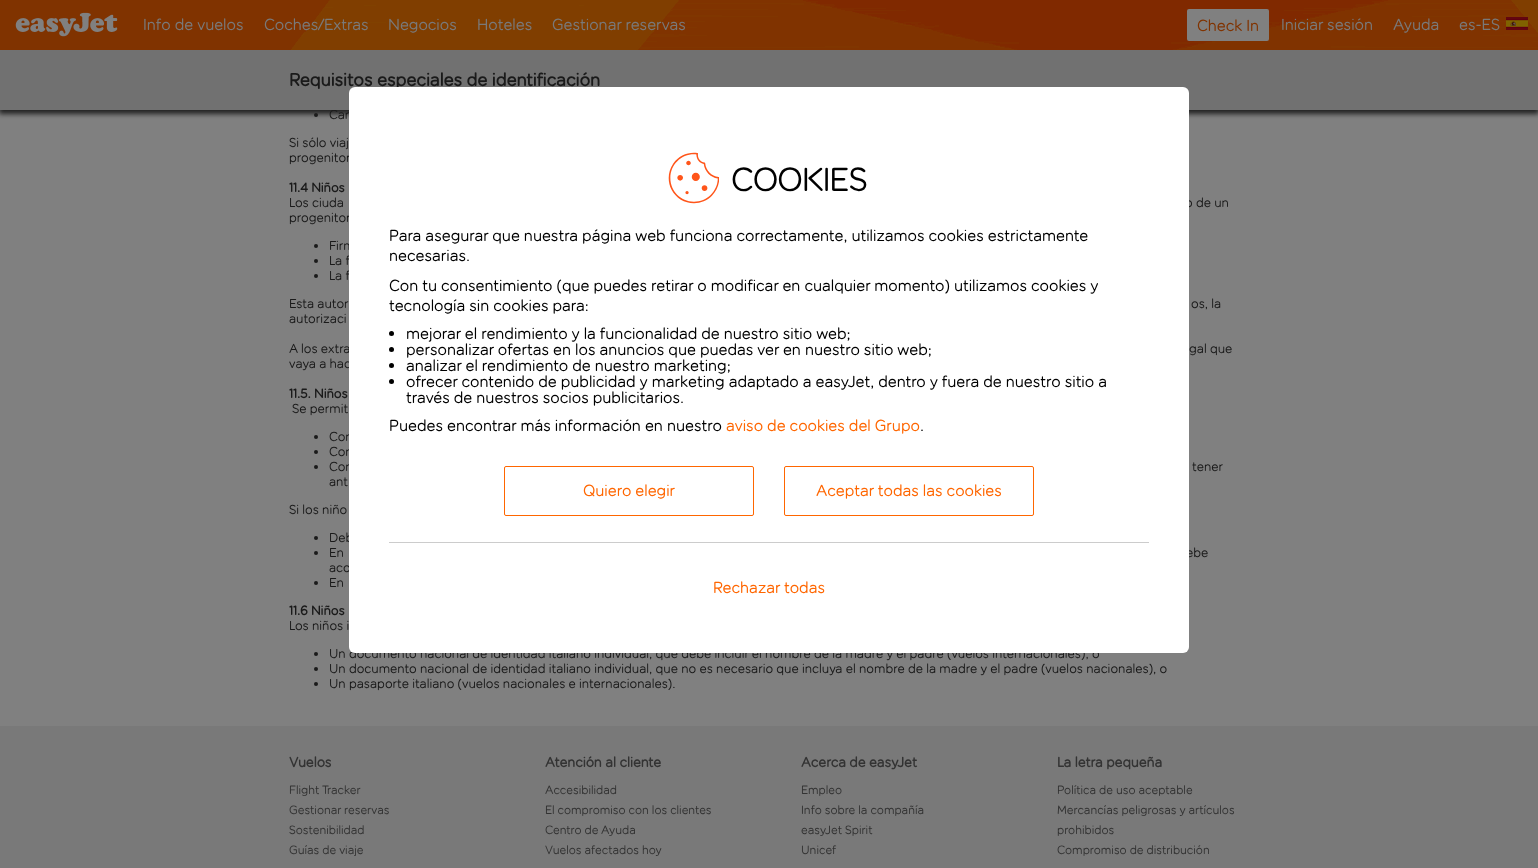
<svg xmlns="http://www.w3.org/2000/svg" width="1538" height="868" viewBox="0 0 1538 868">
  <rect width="100%" height="100%" fill="#808080"/>
  <circle cx="316" cy="115" r="2" fill="#1a1a1a"/>
  <path d="M-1 52h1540v62H-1z" fill="#222" filter="blur(2.5px)"/>
  <path d="M0 0h291v50H0z" fill="#803300"/>
  <image x="291" y="0" width="1247" height="50" href="img/1.png"/>
  <image x="15" y="12" width="103" height="25" href="img/2.png"/>
  <rect x="1187" y="9" width="82" height="32" rx="2" fill="#808080"/>
  <image x="1506" y="17" width="22" height="13" href="img/3.png"/>
  <circle cx="316" cy="246" r="2" fill="#1a1a1a"/>
  <circle cx="316" cy="261" r="2" fill="#1a1a1a"/>
  <circle cx="316" cy="276" r="2" fill="#1a1a1a"/>
  <circle cx="316" cy="437" r="2" fill="#1a1a1a"/>
  <circle cx="316" cy="452" r="2" fill="#1a1a1a"/>
  <circle cx="316" cy="467" r="2" fill="#1a1a1a"/>
  <circle cx="316" cy="538" r="2" fill="#1a1a1a"/>
  <circle cx="316" cy="553" r="2" fill="#1a1a1a"/>
  <circle cx="316" cy="583" r="2" fill="#1a1a1a"/>
  <circle cx="316" cy="654" r="2" fill="#1a1a1a"/>
  <circle cx="316" cy="669" r="2" fill="#1a1a1a"/>
  <circle cx="316" cy="684" r="2" fill="#1a1a1a"/>
  <path d="M0 726h1538v142H0z" fill="#797979"/>
  <g font-family="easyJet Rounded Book" font-size="16" fill="#797979">
    <text x="143" y="30">Info de vuelos</text>
    <text x="264" y="30">Coches/Extras</text>
    <text x="388" y="30">Negocios</text>
    <text x="477" y="30">Hoteles</text>
    <text x="552" y="30">Gestionar reservas</text>
  </g>
  <text x="1197" y="31" font-family="easyJet Rounded Book" font-size="16" fill="#803300">Check In</text>
  <g font-family="easyJet Rounded Book" font-size="16" fill="#797979">
    <text x="1281" y="30">Iniciar sesión</text>
    <text x="1393" y="30">Ayuda</text>
    <text x="1459" y="30">es-ES</text>
  </g>
  <text x="329" y="119" font-family="easyJet Rounded Book" font-size="13" fill="#1a1a1a">Car</text>
  <path d="M0 50h1538v60H0z" fill="#717171"/>
  <text x="289" y="86" font-family="easyJet Rounded Book" font-size="18" font-weight="bold" fill="#1a1a1a">Requisitos especiales de identificación</text>
  <g font-family="easyJet Rounded Book" font-size="13" fill="#1a1a1a">
    <text x="289" y="147">Si sólo viaj</text>
    <text x="289" y="162">progenitor</text>
  </g>
  <text x="289" y="192" font-family="easyJet Rounded Book" font-size="13" font-weight="bold" fill="#1a1a1a">11.4 Niños</text>
  <g font-family="easyJet Rounded Book" font-size="13" fill="#1a1a1a">
    <text x="289" y="207">Los ciuda</text>
    <text x="1185" y="207">o de un</text>
    <text x="289" y="222">progenitor</text>
    <text x="329" y="250">Firm</text>
    <text x="329" y="265">La f</text>
    <text x="329" y="280">La f</text>
    <text x="289" y="308">Esta autor</text>
    <text x="1191" y="308">os, la</text>
    <text x="289" y="323">autorizaci</text>
    <text x="289" y="353">A los extra</text>
    <text x="1189" y="353">gal que</text>
    <text x="289" y="368">vaya a hac</text>
  </g>
  <text x="289" y="398" font-family="easyJet Rounded Book" font-size="13" font-weight="bold" fill="#1a1a1a">11.5. Niños</text>
  <g font-family="easyJet Rounded Book" font-size="13" fill="#1a1a1a">
    <text x="292" y="413">Se permit</text>
    <text x="329" y="441">Con</text>
    <text x="329" y="456">Con</text>
    <text x="329" y="471">Con</text>
    <text x="1192" y="471">tener</text>
    <text x="329" y="486">ant</text>
    <text x="289" y="514">Si los niño</text>
    <text x="329" y="542">Deb</text>
    <text x="329" y="557">En</text>
    <text x="1186" y="557">ebe</text>
    <text x="329" y="572">aco</text>
    <text x="329" y="587">En</text>
  </g>
  <text x="289" y="615" font-family="easyJet Rounded Book" font-size="13" font-weight="bold" fill="#1a1a1a">11.6 Niños</text>
  <g font-family="easyJet Rounded Book" font-size="13" fill="#1a1a1a">
    <text x="289" y="630">Los niños i</text>
    <text x="329" y="658">Un documento nacional de identidad italiano individual, que debe incluir el nombre de la madre y el padre (vuelos internacionales), o</text>
    <text x="329" y="673">Un documento nacional de identidad italiano individual, que no es necesario que incluya el nombre de la madre y el padre (vuelos nacionales), o</text>
    <text x="329" y="688">Un pasaporte italiano (vuelos nacionales e internacionales).</text>
  </g>
  <text x="289" y="767" font-family="easyJet Rounded Book" font-size="14" font-weight="bold" fill="#333">Vuelos</text>
  <g font-family="easyJet Rounded Book" font-size="12" fill="#333">
    <text x="289" y="794">Flight Tracker</text>
    <text x="289" y="814">Gestionar reservas</text>
    <text x="289" y="834">Sostenibilidad</text>
    <text x="289" y="854">Guías de viaje</text>
  </g>
  <text x="545" y="767" font-family="easyJet Rounded Book" font-size="14" font-weight="bold" fill="#333">Atención al cliente</text>
  <g font-family="easyJet Rounded Book" font-size="12" fill="#333">
    <text x="545" y="794">Accesibilidad</text>
    <text x="545" y="814">El compromiso con los clientes</text>
    <text x="545" y="834">Centro de Ayuda</text>
    <text x="545" y="854">Vuelos afectados hoy</text>
  </g>
  <text x="801" y="767" font-family="easyJet Rounded Book" font-size="14" font-weight="bold" fill="#333">Acerca de easyJet</text>
  <g font-family="easyJet Rounded Book" font-size="12" fill="#333">
    <text x="801" y="794">Empleo</text>
    <text x="801" y="814">Info sobre la compañía</text>
    <text x="801" y="834">easyJet Spirit</text>
    <text x="801" y="854">Unicef</text>
  </g>
  <text x="1057" y="767" font-family="easyJet Rounded Book" font-size="14" font-weight="bold" fill="#333">La letra pequeña</text>
  <g font-family="easyJet Rounded Book" font-size="12" fill="#333">
    <text x="1057" y="794">Política de uso aceptable</text>
    <text x="1057" y="814">Mercancías peligrosas y artículos</text>
    <text x="1057" y="834">prohibidos</text>
    <text x="1057" y="854">Compromiso de distribución</text>
  </g>
  <rect x="349" y="87" width="840" height="566" rx="6" fill="#fff"/>
  <image x="668" y="152" width="51" height="52" href="img/4.png"/>
  <text x="731" y="191" font-family="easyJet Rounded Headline" font-size="32" font-weight="bold" fill="#000">COOKIES</text>
  <g font-family="easyJet Rounded Book" font-size="16" fill="#000">
    <text x="389" y="241">Para asegurar que nuestra página web funciona correctamente, utilizamos cookies estrictamente</text>
    <text x="389" y="261">necesarias.</text>
    <text x="389" y="291">Con tu consentimiento (que puedes retirar o modificar en cualquier momento) utilizamos cookies y</text>
    <text x="389" y="311">tecnología sin cookies para:</text>
  </g>
  <circle cx="391.5" cy="333.5" r="2.5" fill="#000"/>
  <text x="406" y="339" font-family="easyJet Rounded Book" font-size="16" fill="#000">mejorar el rendimiento y la funcionalidad de nuestro sitio web;</text>
  <circle cx="391.5" cy="349.5" r="2.5" fill="#000"/>
  <text x="406" y="355" font-family="easyJet Rounded Book" font-size="16" fill="#000">personalizar ofertas en los anuncios que puedas ver en nuestro sitio web;</text>
  <circle cx="391.5" cy="365.5" r="2.5" fill="#000"/>
  <text x="406" y="371" font-family="easyJet Rounded Book" font-size="16" fill="#000">analizar el rendimiento de nuestro marketing;</text>
  <circle cx="391.5" cy="381.5" r="2.5" fill="#000"/>
  <g font-family="easyJet Rounded Book" font-size="16" fill="#000">
    <text x="406" y="387">ofrecer contenido de publicidad y marketing adaptado a easyJet, dentro y fuera de nuestro sitio a</text>
    <text x="406" y="403">través de nuestros socios publicitarios.</text>
    <text x="389" y="431">Puedes encontrar más información en nuestro</text>
  </g>
  <text x="726" y="431" font-family="easyJet Rounded Book" font-size="16" fill="#f60">aviso de cookies del Grupo</text>
  <text x="920" y="431" font-family="easyJet Rounded Book" font-size="16" fill="#000">.</text>
  <rect x="504.5" y="466.5" width="249" height="49" rx="1.5" fill="none" stroke="#f60"/>
  <text x="583" y="496" font-family="easyJet Rounded Book" font-size="16" fill="#f60">Quiero elegir</text>
  <rect x="784.5" y="466.5" width="249" height="49" rx="1.5" fill="none" stroke="#f60"/>
  <text x="816" y="496" font-family="easyJet Rounded Book" font-size="16" fill="#f60">Aceptar todas las cookies</text>
  <path d="M389 542h760v1H389z" fill="#ccc"/>
  <text x="713" y="593" font-family="easyJet Rounded Book" font-size="16" fill="#f60">Rechazar todas</text>
</svg>
